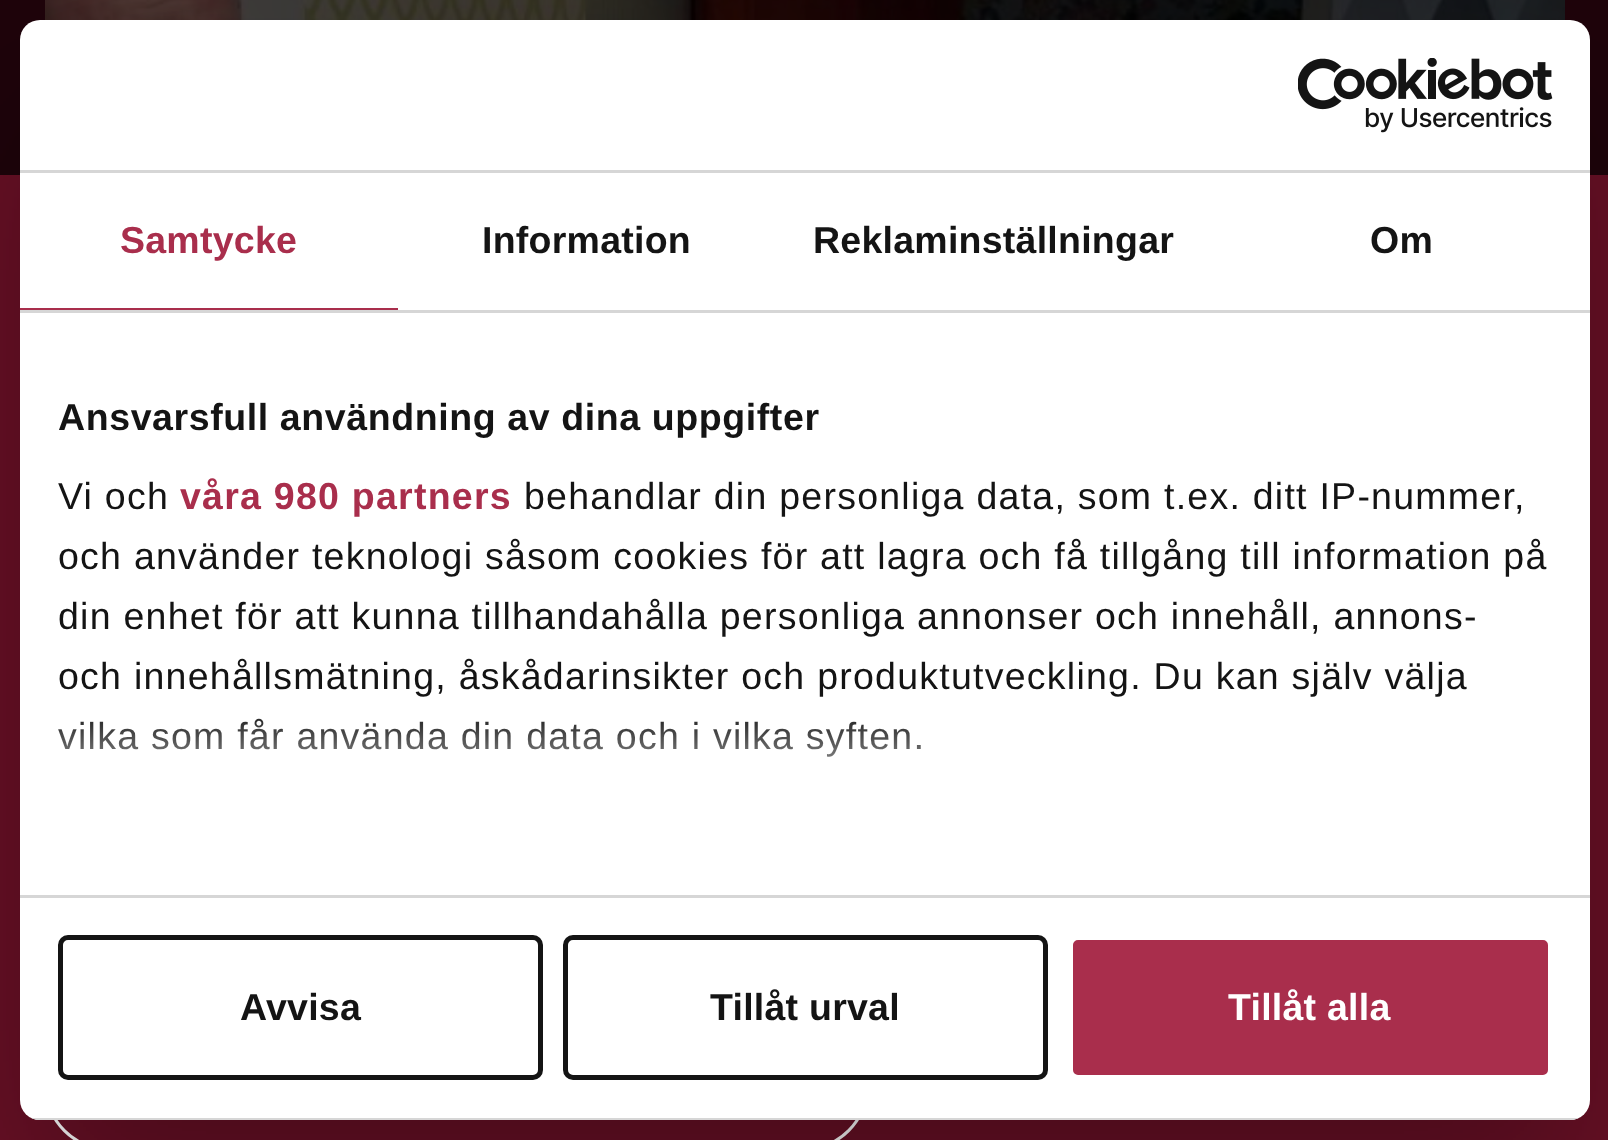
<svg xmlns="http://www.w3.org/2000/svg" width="1608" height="1140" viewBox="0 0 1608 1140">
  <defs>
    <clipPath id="clip1"><rect x="20" y="20" width="1570" height="1100" rx="20"/></clipPath>
    <linearGradient id="g1" gradientUnits="userSpaceOnUse" x1="789" y1="895" x2="789" y2="708"><stop offset="0" stop-color="#fff"/><stop offset="0.5" stop-color="#fff" stop-opacity="0.8"/><stop offset="1" stop-color="#fff" stop-opacity="0"/></linearGradient>
  </defs>
  <rect width="100%" height="100%" fill="#6a1026"/>
  <image x="45" y="0" width="1520" height="20" href="img/1.png"/>
  <path d="M0 0h1608v175H0z" fill="#000000b3"/>
  <rect x="46.5" y="1026.5" width="820" height="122" rx="61" fill="none" stroke="#fff" stroke-width="3"/>
  <rect x="20" y="100" width="1570" height="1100" rx="20" fill="#0000004d" filter="blur(85px)"/>
  <rect x="20" y="20" width="1570" height="1100" rx="20" fill="#fff"/>
  <path d="M20 170h1570v3H20z" fill="#d6d6d6"/>
  <image x="1298" y="58" width="255" height="75" href="img/2.png"/>
  <path d="M20 310h1570v3H20z" fill="#d6d6d6"/>
  <path d="M20 308h378v2H20z" fill="#a92e4c"/>
  <path d="M20 895h1570v3H20z" fill="#d6d6d6"/>
  <g clip-path="url(#clip1)">
    <path d="M31 1118h1548v2H31z" fill="#d6d6d6"/>
  </g>
  <rect x="60.5" y="937.5" width="480" height="140" rx="7.5" fill="none" stroke="#141414" stroke-width="5"/>
  <rect x="565.5" y="937.5" width="480" height="140" rx="7.5" fill="none" stroke="#141414" stroke-width="5"/>
  <rect x="1070.5" y="937.5" width="480" height="140" rx="7.5" fill="#a92e4c" stroke="#fff" stroke-width="5"/>
  <text x="120" y="253" font-family="Liberation Sans" font-size="37.5" font-weight="bold" letter-spacing="0.25" fill="#a92e4c">Samtycke</text>
  <g font-family="Liberation Sans" font-size="37.5" font-weight="bold" letter-spacing="0.25" fill="#141414">
    <text x="482" y="253">Information</text>
    <text x="813" y="253">Reklaminställningar</text>
    <text x="1370" y="253">Om</text>
  </g>
  <text x="58" y="430" font-family="Liberation Sans" font-size="37.5" font-weight="bold" letter-spacing="0.6" fill="#141414">Ansvarsfull användning av dina uppgifter</text>
  <text x="58" y="509" font-family="Liberation Sans" font-size="37.5" letter-spacing="1.25" fill="#141414">Vi och</text>
  <text x="180" y="509" font-family="Liberation Sans" font-size="37.5" font-weight="bold" letter-spacing="1.25" fill="#a92e4c">våra 980 partners</text>
  <g font-family="Liberation Sans" font-size="37.5" letter-spacing="1.25" fill="#141414">
    <text x="524" y="509">behandlar din personliga data, som t.ex. ditt IP-nummer,</text>
    <text x="58" y="569">och använder teknologi såsom cookies för att lagra och få tillgång till information på</text>
    <text x="58" y="629">din enhet för att kunna tillhandahålla personliga annonser och innehåll, annons-</text>
    <text x="58" y="689">och innehållsmätning, åskådarinsikter och produktutveckling. Du kan själv välja</text>
    <text x="58" y="749">vilka som får använda din data och i vilka syften.</text>
  </g>
  <path d="M57 718h863v39H57z" fill="url(#g1)"/>
  <g font-family="Liberation Sans" font-size="37.5" font-weight="bold" letter-spacing="0.25" fill="#141414">
    <text x="240" y="1020">Avvisa</text>
    <text x="710" y="1020">Tillåt urval</text>
  </g>
  <text x="1228" y="1020" font-family="Liberation Sans" font-size="37.5" font-weight="bold" letter-spacing="0.25" fill="#fff">Tillåt alla</text>
</svg>
